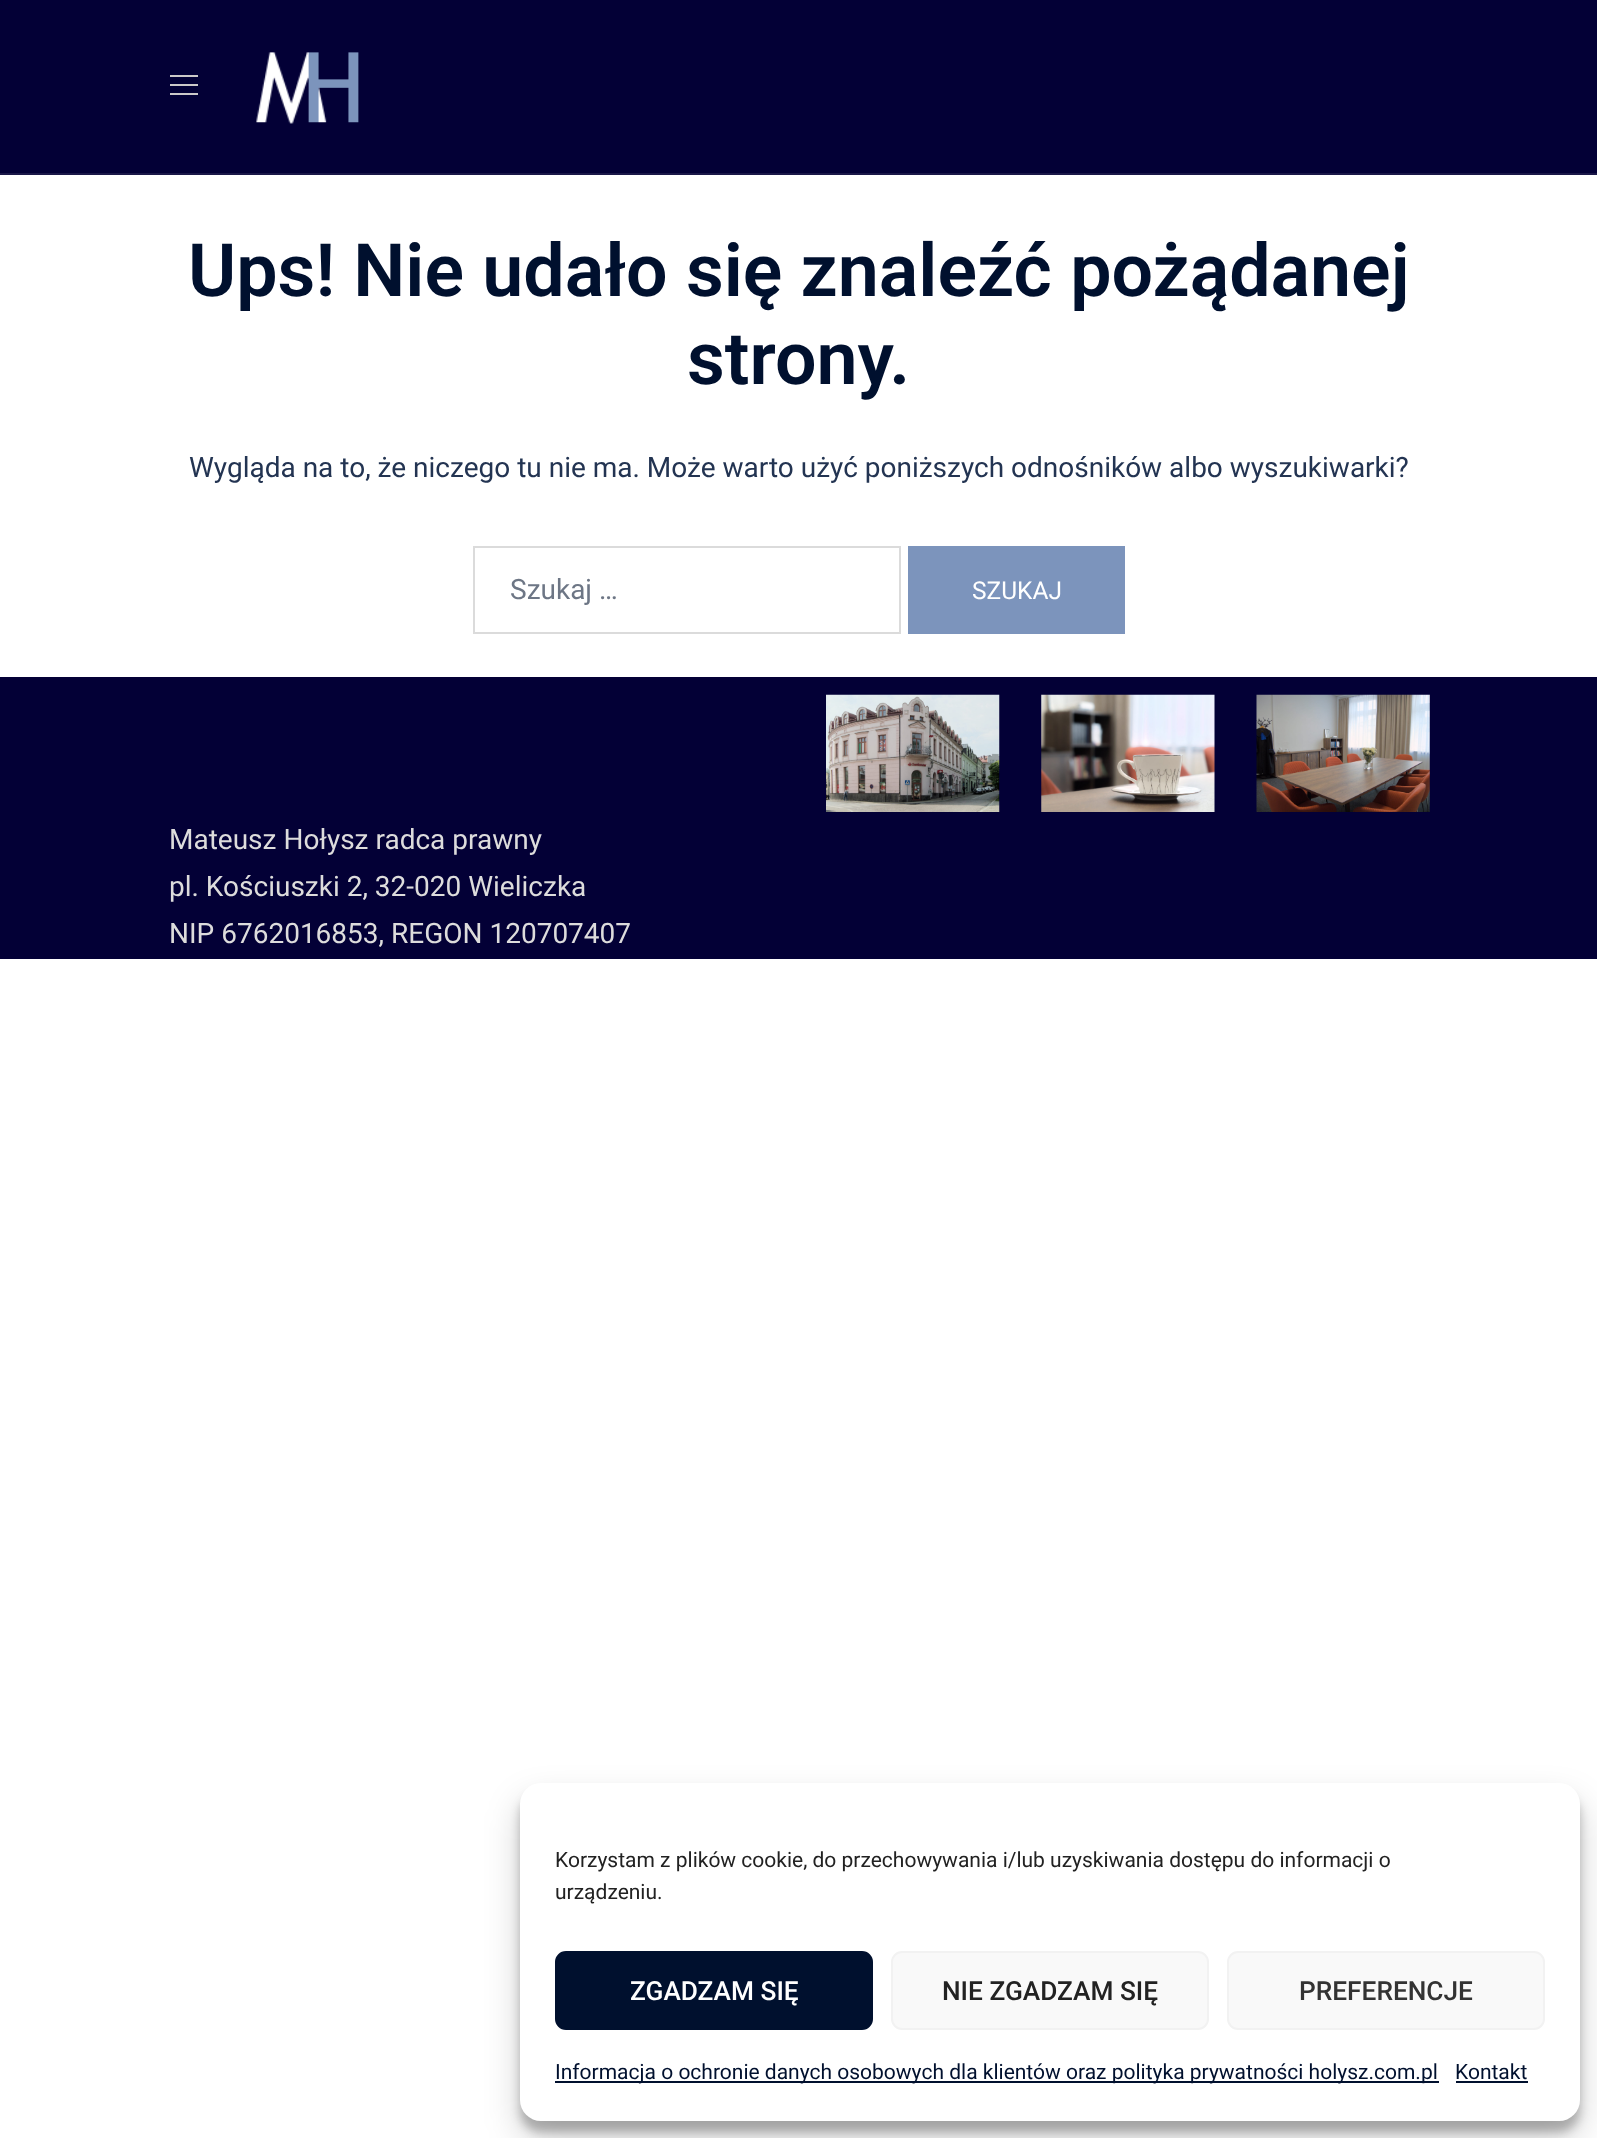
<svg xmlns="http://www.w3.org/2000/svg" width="1597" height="2138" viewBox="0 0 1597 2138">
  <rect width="100%" height="100%" fill="#fff"/>
  <path d="M0 0h1597v173H0z" fill="#030036"/>
  <path d="M0 173h1597v2H0z" fill="#1a1748"/>
  <path d="M170 75h28v2H170z" fill="#ccc9c9"/>
  <path d="M170 84h28v2H170z" fill="#ccc9c9"/>
  <path d="M170 93h28v2H170z" fill="#ccc9c9"/>
  <image x="256" y="52" width="103" height="72" href="img/1.png"/>
  <path d="M474 547h426v86H474z" fill="none" stroke="#dbdbdb" stroke-width="2"/>
  <path d="M908 546h217v88H908z" fill="#7c94bc"/>
  <path d="M0 677h1597v282H0z" fill="#030036"/>
  <image x="826" y="694" width="174" height="118" href="img/2.png"/>
  <image x="1041" y="694" width="174" height="118" href="img/3.png"/>
  <image x="1256" y="694" width="174" height="118" href="img/4.png"/>
  <rect x="520" y="1794" width="1060" height="338" rx="21" fill="#0000003b" filter="blur(5px)"/>
  <rect x="520" y="1801" width="1060" height="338" rx="21" fill="#00000030" filter="blur(17.5px)"/>
  <rect x="520" y="1783" width="1060" height="338" rx="21" fill="#fff"/>
  <rect x="556" y="1952" width="316" height="77" rx="10" fill="#00102e" stroke="#00102e" stroke-width="2"/>
  <rect x="892" y="1952" width="316" height="77" rx="10" fill="#f9f9f9" stroke="#f2f2f2" stroke-width="2"/>
  <rect x="1228" y="1952" width="316" height="77" rx="10" fill="#f9f9f9" stroke="#f2f2f2" stroke-width="2"/>
  <path d="M555 2081h884v2H555z" fill="#00102e"/>
  <path d="M1456 2081h72v2H1456z" fill="#00102e"/>
  <g font-family="Roboto" font-size="73.5" font-weight="600" fill="#00102e">
    <text x="188" y="296">Ups! Nie udało się znaleźć pożądanej</text>
    <text x="687" y="384">strony.</text>
  </g>
  <text x="189" y="477" font-family="Roboto" font-size="28" fill="#233452">Wygląda na to, że niczego tu nie ma. Może warto użyć poniższych odnośników albo wyszukiwarki?</text>
  <text x="510" y="599" font-family="Roboto" font-size="28" fill="#6d7685">Szukaj …</text>
  <text x="972" y="599" font-family="Roboto" font-size="24.5" fill="#fff">SZUKAJ</text>
  <g font-family="Roboto" font-size="28" fill="#dddcdc">
    <text x="169" y="849">Mateusz Hołysz radca prawny</text>
    <text x="169" y="896">pl. Kościuszki 2, 32-020 Wieliczka</text>
    <text x="169" y="943">NIP 6762016853, REGON 120707407</text>
  </g>
  <g font-family="Roboto" font-size="21" fill="#222">
    <text x="555" y="1867">Korzystam z plików cookie, do przechowywania i/lub uzyskiwania dostępu do informacji o</text>
    <text x="555" y="1899">urządzeniu.</text>
  </g>
  <text x="630" y="2000" font-family="Roboto" font-size="26.25" font-weight="500" fill="#fff">ZGADZAM SIĘ</text>
  <text x="942" y="2000" font-family="Roboto" font-size="26.25" font-weight="500" fill="#222">NIE ZGADZAM SIĘ</text>
  <text x="1299" y="2000" font-family="Roboto" font-size="26.25" font-weight="500" fill="#333">PREFERENCJE</text>
  <g font-family="Roboto" font-size="21" fill="#00102e">
    <text x="555" y="2079">Informacja o ochronie danych osobowych dla klientów oraz polityka prywatności holysz.com.pl</text>
    <text x="1455" y="2079">Kontakt</text>
  </g>
</svg>
